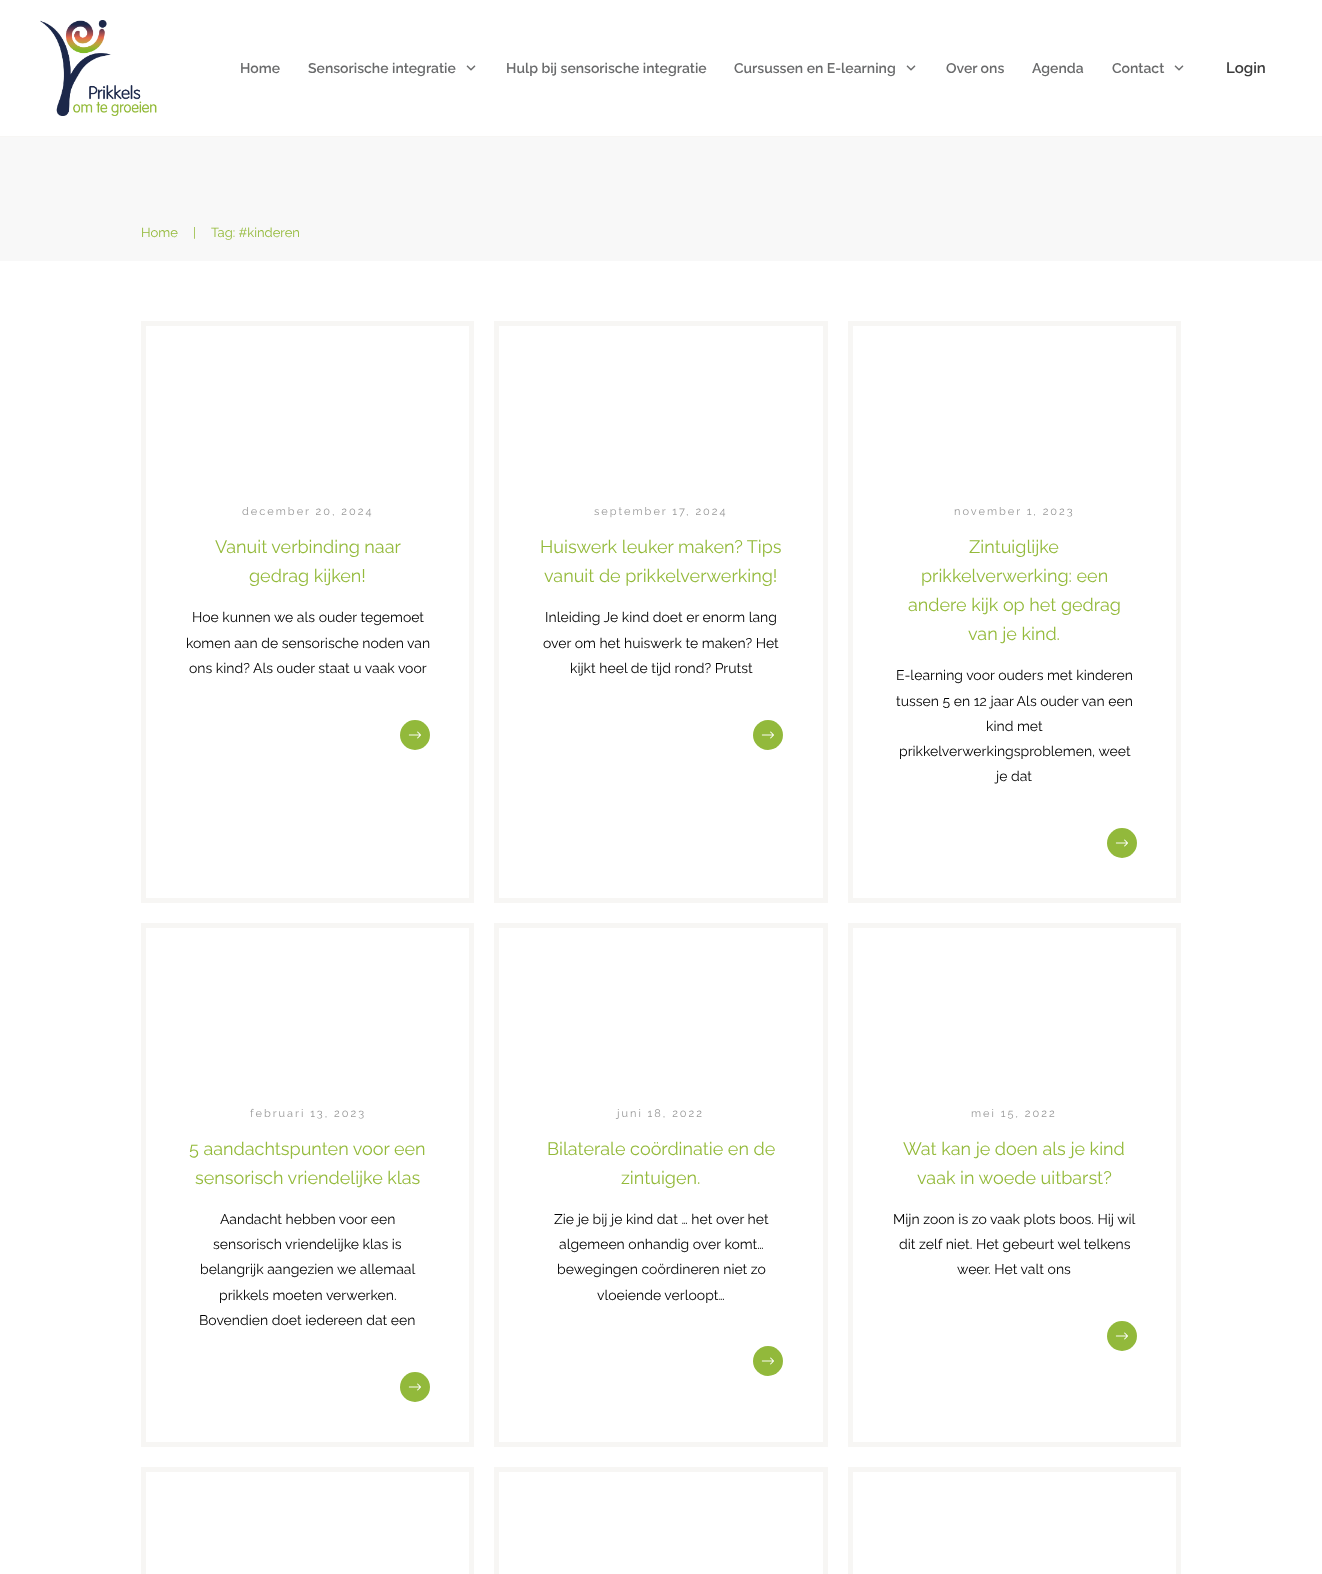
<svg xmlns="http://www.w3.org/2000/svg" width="1322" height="1574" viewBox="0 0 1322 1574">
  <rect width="100%" height="100%" fill="#fff"/>
  <path d="M0 136h1322v1H0z" fill="#f7f6f4"/>
  <image x="40" y="20" width="117" height="96" href="img/1.png"/>
  <image x="466" y="65" width="10" height="6" href="img/2.png"/>
  <image x="906" y="65" width="10" height="6" href="img/2.png"/>
  <image x="1174" y="65" width="10" height="6" href="img/2.png"/>
  <path d="M0 137h1322v124H0z" fill="#f8f8f8"/>
  <path d="M143.5 323.5h328v577H143.5z" fill="none" stroke="#f7f6f4" stroke-width="5"/>
  <circle cx="415" cy="735" r="15" fill="#92b93b"/>
  <image x="408" y="731" width="13" height="8" href="img/3.png"/>
  <path d="M496.5 323.5h329v577H496.5z" fill="none" stroke="#f7f6f4" stroke-width="5"/>
  <circle cx="768" cy="735" r="15" fill="#92b93b"/>
  <image x="761" y="731" width="13" height="8" href="img/3.png"/>
  <path d="M850.5 323.5h328v577H850.5z" fill="none" stroke="#f7f6f4" stroke-width="5"/>
  <circle cx="1122" cy="843" r="15" fill="#92b93b"/>
  <image x="1115" y="839" width="13" height="8" href="img/3.png"/>
  <path d="M143.5 925.5h328v519H143.5z" fill="none" stroke="#f7f6f4" stroke-width="5"/>
  <circle cx="415" cy="1387" r="15" fill="#92b93b"/>
  <image x="408" y="1383" width="13" height="8" href="img/3.png"/>
  <path d="M496.5 925.5h329v519H496.5z" fill="none" stroke="#f7f6f4" stroke-width="5"/>
  <circle cx="768" cy="1361" r="15" fill="#92b93b"/>
  <image x="761" y="1357" width="13" height="8" href="img/3.png"/>
  <path d="M850.5 925.5h328v519H850.5z" fill="none" stroke="#f7f6f4" stroke-width="5"/>
  <circle cx="1122" cy="1336" r="15" fill="#92b93b"/>
  <image x="1115" y="1332" width="13" height="8" href="img/3.png"/>
  <path d="M143.5 1469.5h328v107H143.5z" fill="none" stroke="#f7f6f4" stroke-width="5"/>
  <path d="M496.5 1469.5h329v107H496.5z" fill="none" stroke="#f7f6f4" stroke-width="5"/>
  <path d="M850.5 1469.5h328v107H850.5z" fill="none" stroke="#f7f6f4" stroke-width="5"/>
  <g font-family="Raleway" font-size="14" font-weight="600" fill="#6a6b6c">
    <text x="240" y="73">Home</text>
    <text x="308" y="73">Sensorische integratie</text>
    <text x="506" y="73">Hulp bij sensorische integratie</text>
    <text x="734" y="73">Cursussen en E-learning</text>
    <text x="946" y="73">Over ons</text>
    <text x="1032" y="73">Agenda</text>
    <text x="1112" y="73">Contact</text>
  </g>
  <text x="1226" y="73" font-family="Raleway" font-size="15" font-weight="600" fill="#3b3b3b">Login</text>
  <g font-family="Raleway" font-size="13" fill="#94ba3b">
    <text x="141" y="237">Home</text>
    <text x="193" y="237">|</text>
    <text x="211" y="237">Tag: #kinderen</text>
  </g>
  <text x="242" y="515" font-family="Raleway" font-size="11" letter-spacing="2" fill="#999">december 20, 2024</text>
  <g font-family="Raleway" font-size="18" fill="#94ba3b">
    <text x="215" y="553">Vanuit verbinding naar</text>
    <text x="249" y="582">gedrag kijken!</text>
  </g>
  <g font-family="Raleway" font-size="14" fill="#000">
    <text x="192" y="622">Hoe kunnen we als ouder tegemoet</text>
    <text x="186" y="648">komen aan de sensorische noden van</text>
    <text x="189" y="673">ons kind? Als ouder staat u vaak voor</text>
  </g>
  <text x="594" y="515" font-family="Raleway" font-size="11" letter-spacing="2" fill="#999">september 17, 2024</text>
  <g font-family="Raleway" font-size="18" fill="#94ba3b">
    <text x="540" y="553">Huiswerk leuker maken? Tips</text>
    <text x="544" y="582">vanuit de prikkelverwerking!</text>
  </g>
  <g font-family="Raleway" font-size="14" fill="#000">
    <text x="545" y="622">Inleiding Je kind doet er enorm lang</text>
    <text x="543" y="648">over om het huiswerk te maken? Het</text>
    <text x="570" y="673">kijkt heel de tijd rond? Prutst</text>
  </g>
  <text x="954" y="515" font-family="Raleway" font-size="11" letter-spacing="2" fill="#999">november 1, 2023</text>
  <g font-family="Raleway" font-size="18" fill="#94ba3b">
    <text x="969" y="553">Zintuiglijke</text>
    <text x="921" y="582">prikkelverwerking: een</text>
    <text x="908" y="611">andere kijk op het gedrag</text>
    <text x="968" y="640">van je kind.</text>
  </g>
  <g font-family="Raleway" font-size="14" fill="#000">
    <text x="896" y="680">E-learning voor ouders met kinderen</text>
    <text x="896" y="706">tussen 5 en 12 jaar Als ouder van een</text>
    <text x="986" y="731">kind met</text>
    <text x="899" y="756">prikkelverwerkingsproblemen, weet</text>
    <text x="996" y="781">je dat</text>
  </g>
  <text x="250" y="1117" font-family="Raleway" font-size="11" letter-spacing="2" fill="#999">februari 13, 2023</text>
  <g font-family="Raleway" font-size="18" fill="#94ba3b">
    <text x="189" y="1155">5 aandachtspunten voor een</text>
    <text x="195" y="1184">sensorisch vriendelijke klas</text>
  </g>
  <g font-family="Raleway" font-size="14" fill="#000">
    <text x="220" y="1224">Aandacht hebben voor een</text>
    <text x="213" y="1249">sensorisch vriendelijke klas is</text>
    <text x="200" y="1274">belangrijk aangezien we allemaal</text>
    <text x="219" y="1300">prikkels moeten verwerken.</text>
    <text x="199" y="1325">Bovendien doet iedereen dat een</text>
  </g>
  <text x="617" y="1117" font-family="Raleway" font-size="11" letter-spacing="2" fill="#999">juni 18, 2022</text>
  <g font-family="Raleway" font-size="18" fill="#94ba3b">
    <text x="547" y="1155">Bilaterale coördinatie en de</text>
    <text x="621" y="1184">zintuigen.</text>
  </g>
  <g font-family="Raleway" font-size="14" fill="#000">
    <text x="554" y="1224">Zie je bij je kind dat … het over het</text>
    <text x="559" y="1249">algemeen onhandig over komt…</text>
    <text x="557" y="1274">bewegingen coördineren niet zo</text>
    <text x="597" y="1300">vloeiende verloopt…</text>
  </g>
  <text x="971" y="1117" font-family="Raleway" font-size="11" letter-spacing="2" fill="#999">mei 15, 2022</text>
  <g font-family="Raleway" font-size="18" fill="#94ba3b">
    <text x="903" y="1155">Wat kan je doen als je kind</text>
    <text x="917" y="1184">vaak in woede uitbarst?</text>
  </g>
  <g font-family="Raleway" font-size="14" fill="#000">
    <text x="893" y="1224">Mijn zoon is zo vaak plots boos. Hij wil</text>
    <text x="899" y="1249">dit zelf niet. Het gebeurt wel telkens</text>
    <text x="957" y="1274">weer. Het valt ons</text>
  </g>
</svg>
